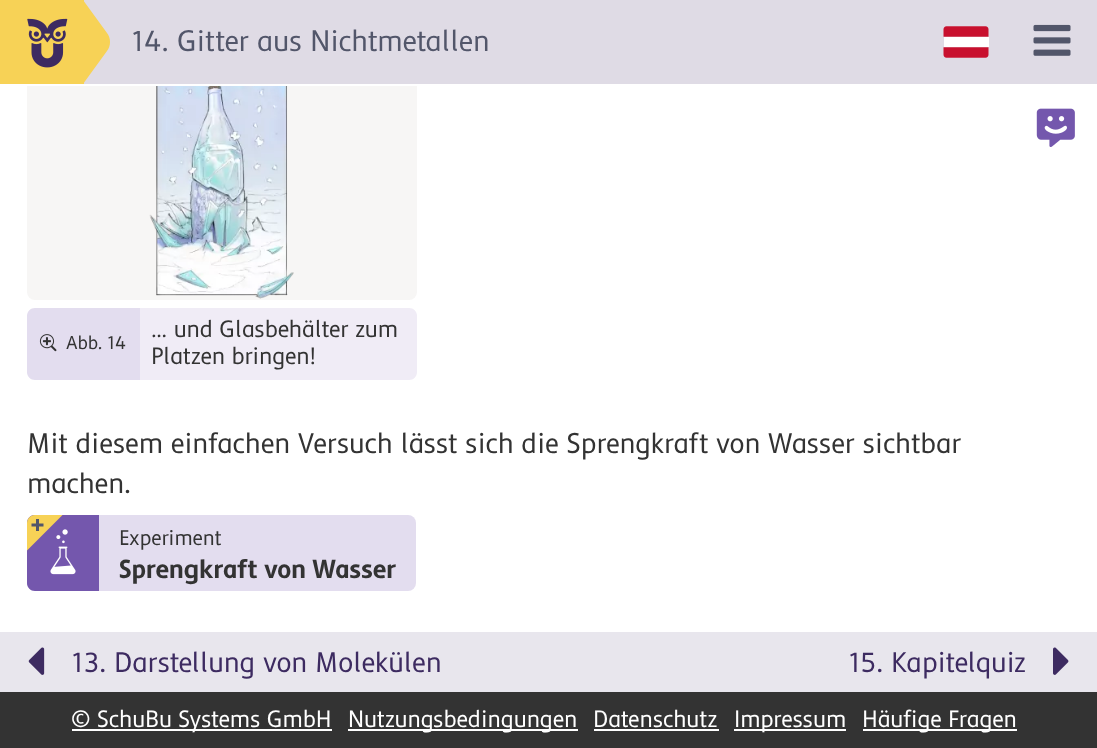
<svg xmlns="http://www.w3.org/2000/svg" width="1097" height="748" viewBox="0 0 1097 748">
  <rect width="100%" height="100%" fill="#fff"/>
  <rect x="27" y="66" width="390" height="234" rx="8" fill="#f7f6f5"/>
  <path d="M84 0h1013v84H84z" fill="#dfdbe5"/>
  <path d="M27 84h390v2H27z" fill="#fff"/>
  <path d="M0 0h84v84H0z" fill="#f7d256"/>
  <image x="27" y="18" width="41" height="50" href="img/1.png"/>
  <path d="M83 0L107 33C111 38 111 46 107 51L83 84Z" fill="#f7d256"/>
  <image x="943" y="26" width="46" height="32" href="img/2.png"/>
  <image x="1033" y="24" width="38" height="32" href="img/3.png"/>
  <image x="1036" y="108" width="39" height="39" href="img/4.png"/>
  <image x="149" y="86" width="145" height="213" href="img/5.png"/>
  <path d="M35 308H140V380H35C30.5 380 27 376.5 27 372V316C27 311.5 30.5 308 35 308Z" fill="#e3ddef"/>
  <image x="39" y="334" width="18" height="18" href="img/6.png"/>
  <path d="M140 308H409C413.5 308 417 311.5 417 316V372C417 376.5 413.5 380 409 380H140Z" fill="#f0ecf6"/>
  <rect x="27" y="515" width="389" height="76" rx="8" fill="#e3ddef"/>
  <path d="M35 515H99V591H35C30.5 591 27 587.5 27 583V523C27 518.5 30.5 515 35 515Z" fill="#7457ad"/>
  <image x="50" y="529" width="26" height="46" href="img/8.png"/>
  <image x="27" y="515" width="36" height="36" href="img/7.png"/>
  <path d="M0 632h1097v60H0z" fill="#e8e6ed"/>
  <image x="28" y="647" width="17" height="28" href="img/9.png"/>
  <image x="1053" y="647" width="16" height="28" href="img/10.png"/>
  <path d="M0 692h1097v56H0z" fill="#333"/>
  <path d="M72 729h260v2H72z" fill="#fff"/>
  <path d="M348 729h230v2H348z" fill="#fff"/>
  <path d="M594 729h125v2H594z" fill="#fff"/>
  <path d="M734 729h112v2H734z" fill="#fff"/>
  <path d="M863 729h154v2H863z" fill="#fff"/>
  <text x="132" y="51" font-family="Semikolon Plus" font-size="30" fill="#52566a">14. Gitter aus Nichtmetallen</text>
  <text x="66" y="349" font-family="Semikolon Plus" font-size="19" fill="#333">Abb. 14</text>
  <g font-family="Semikolon Plus" font-size="24" fill="#333">
    <text x="151" y="337">… und Glasbehälter zum</text>
    <text x="151" y="364">Platzen bringen!</text>
  </g>
  <g font-family="Semikolon Plus" font-size="28.8" fill="#333">
    <text x="27" y="453">Mit diesem einfachen Versuch lässt sich die Sprengkraft von Wasser sichtbar</text>
    <text x="27" y="493">machen.</text>
  </g>
  <text x="119" y="545" font-family="Semikolon Plus" font-size="21.5" fill="#333">Experiment</text>
  <text x="119" y="578" font-family="Semikolon Plus" font-size="26.4" font-weight="bold" fill="#333">Sprengkraft von Wasser</text>
  <g font-family="Semikolon Plus" font-size="28.8" fill="#3d2b61">
    <text x="72" y="672">13. Darstellung von Molekülen</text>
    <text x="849" y="672">15. Kapitelquiz</text>
  </g>
  <g font-family="Semikolon Plus" font-size="24" fill="#fff">
    <text x="71" y="727">© SchuBu Systems GmbH</text>
    <text x="348" y="727">Nutzungsbedingungen</text>
    <text x="593" y="727">Datenschutz</text>
    <text x="734" y="727">Impressum</text>
    <text x="862" y="727">Häufige Fragen</text>
  </g>
</svg>
